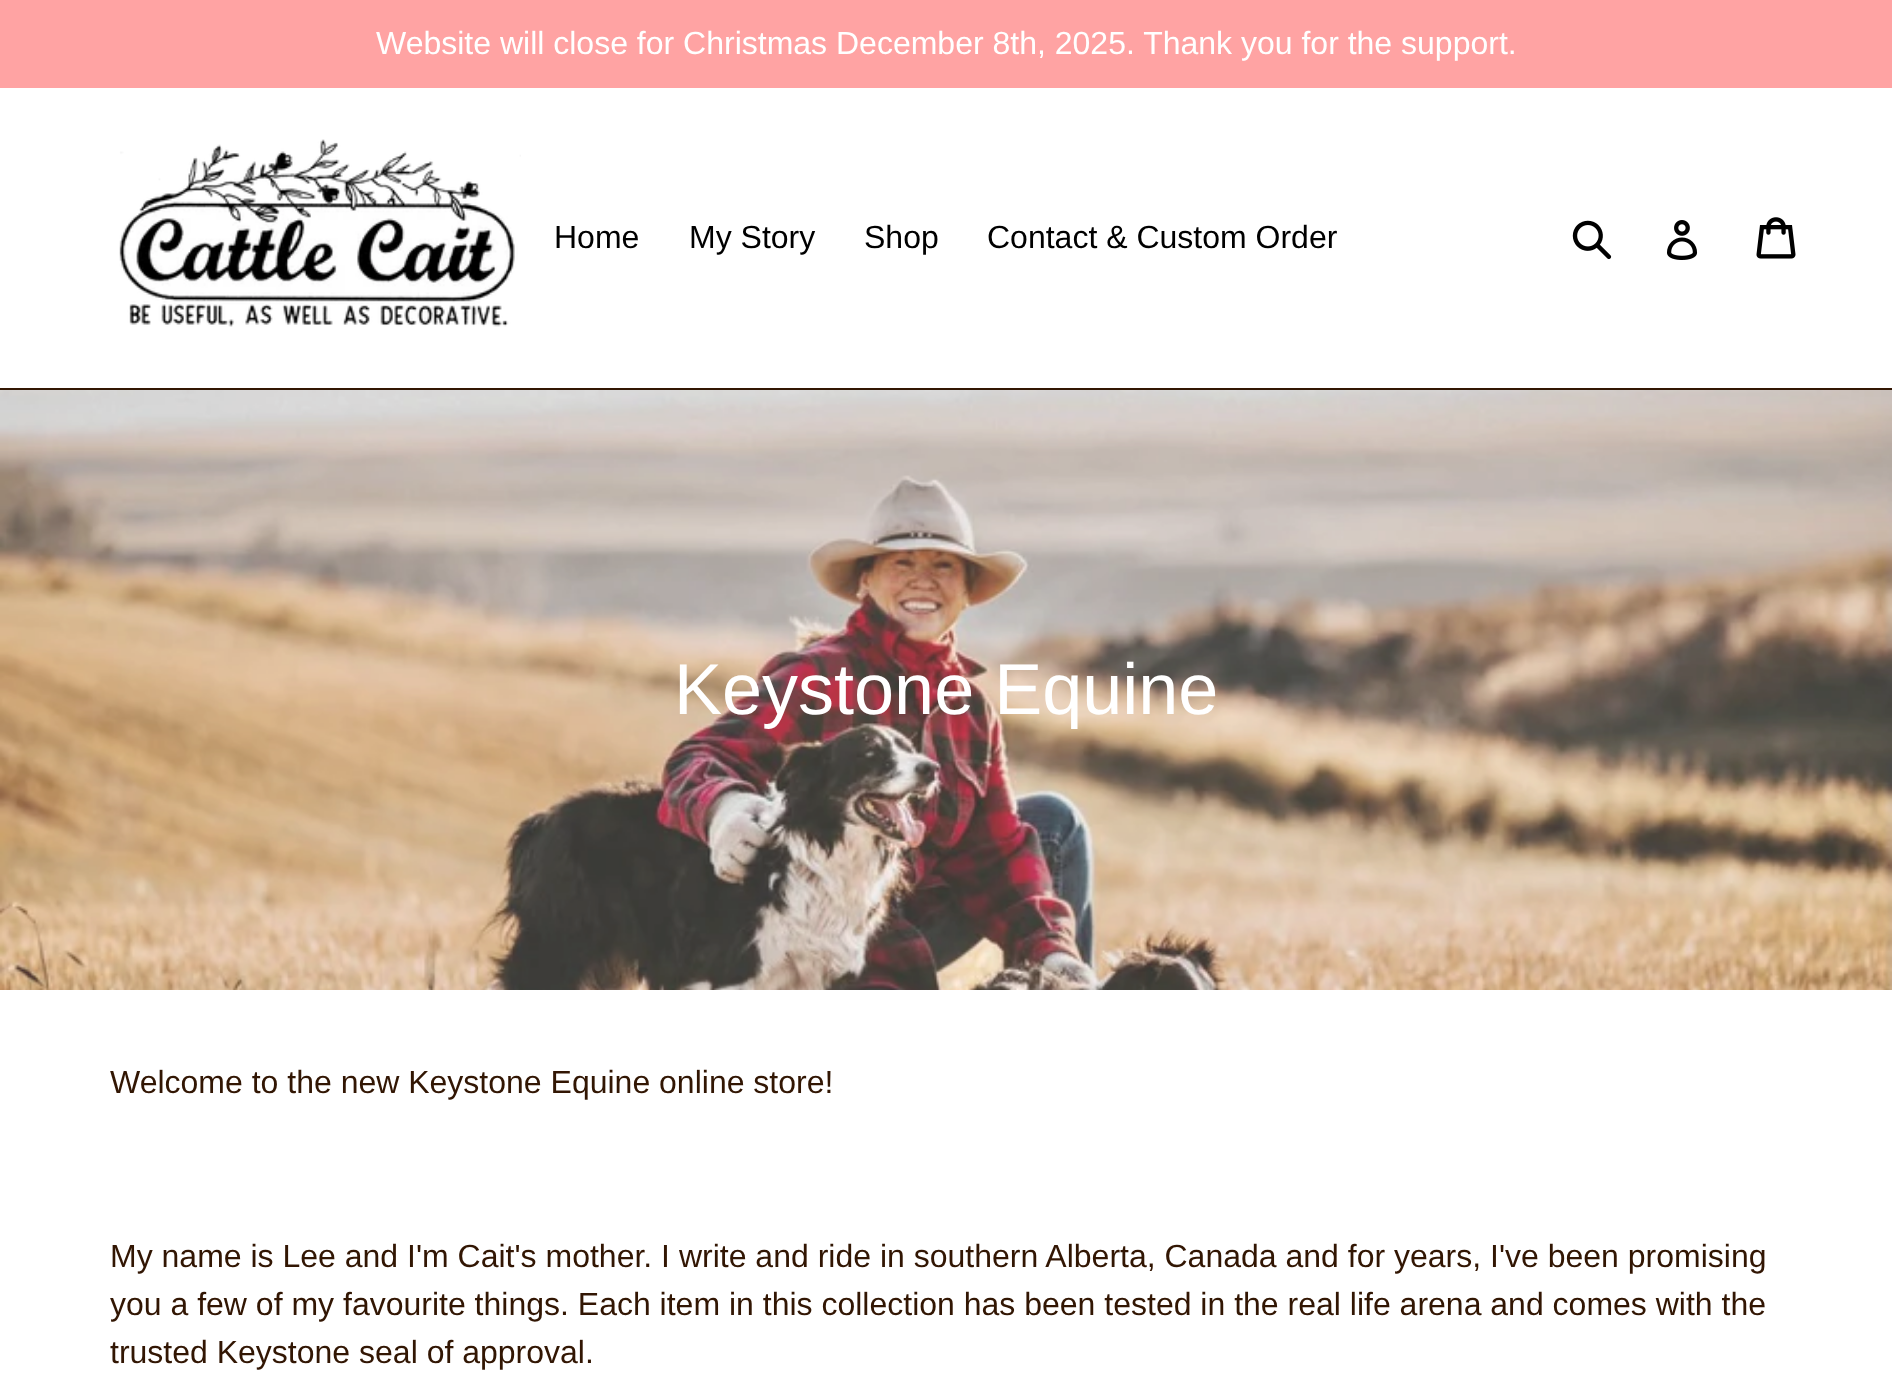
<svg xmlns="http://www.w3.org/2000/svg" width="1892" height="1390" viewBox="0 0 1892 1390">
  <rect width="100%" height="100%" fill="#fff"/>
  <path d="M0 0h1892v88H0z" fill="#ffa3a3"/>
  <path d="M0 388h1892v2H0z" fill="#321603"/>
  <image x="119" y="139" width="402" height="188" href="img/1.png"/>
  <image x="1572" y="220" width="40" height="40" href="img/2.png"/>
  <image x="1667" y="220" width="31" height="40" href="img/3.png"/>
  <image x="1756" y="217" width="40" height="42" href="img/4.png"/>
  <image x="0" y="390" width="1892" height="600" href="img/5.png"/>
  <text x="376" y="54" font-family="Liberation Sans" font-size="32" fill="#fff">Website will close for Christmas December 8th, 2025. Thank you for the support.</text>
  <g font-family="Liberation Sans" font-size="32" fill="#000">
    <text x="554" y="248">Home</text>
    <text x="689" y="248">My Story</text>
    <text x="864" y="248">Shop</text>
    <text x="987" y="248">Contact &amp; Custom Order</text>
  </g>
  <text x="674" y="714" font-family="Liberation Sans" font-size="72" fill="#fff">Keystone Equine</text>
  <g font-family="Liberation Sans" font-size="32" fill="#321603">
    <text x="110" y="1093">Welcome to the new Keystone Equine online store!</text>
    <text x="110" y="1267">My name is Lee and I'm Cait's mother. I write and ride in southern Alberta, Canada and for years, I've been promising</text>
    <text x="110" y="1315">you a few of my favourite things. Each item in this collection has been tested in the real life arena and comes with the</text>
    <text x="110" y="1363">trusted Keystone seal of approval.</text>
  </g>
</svg>
